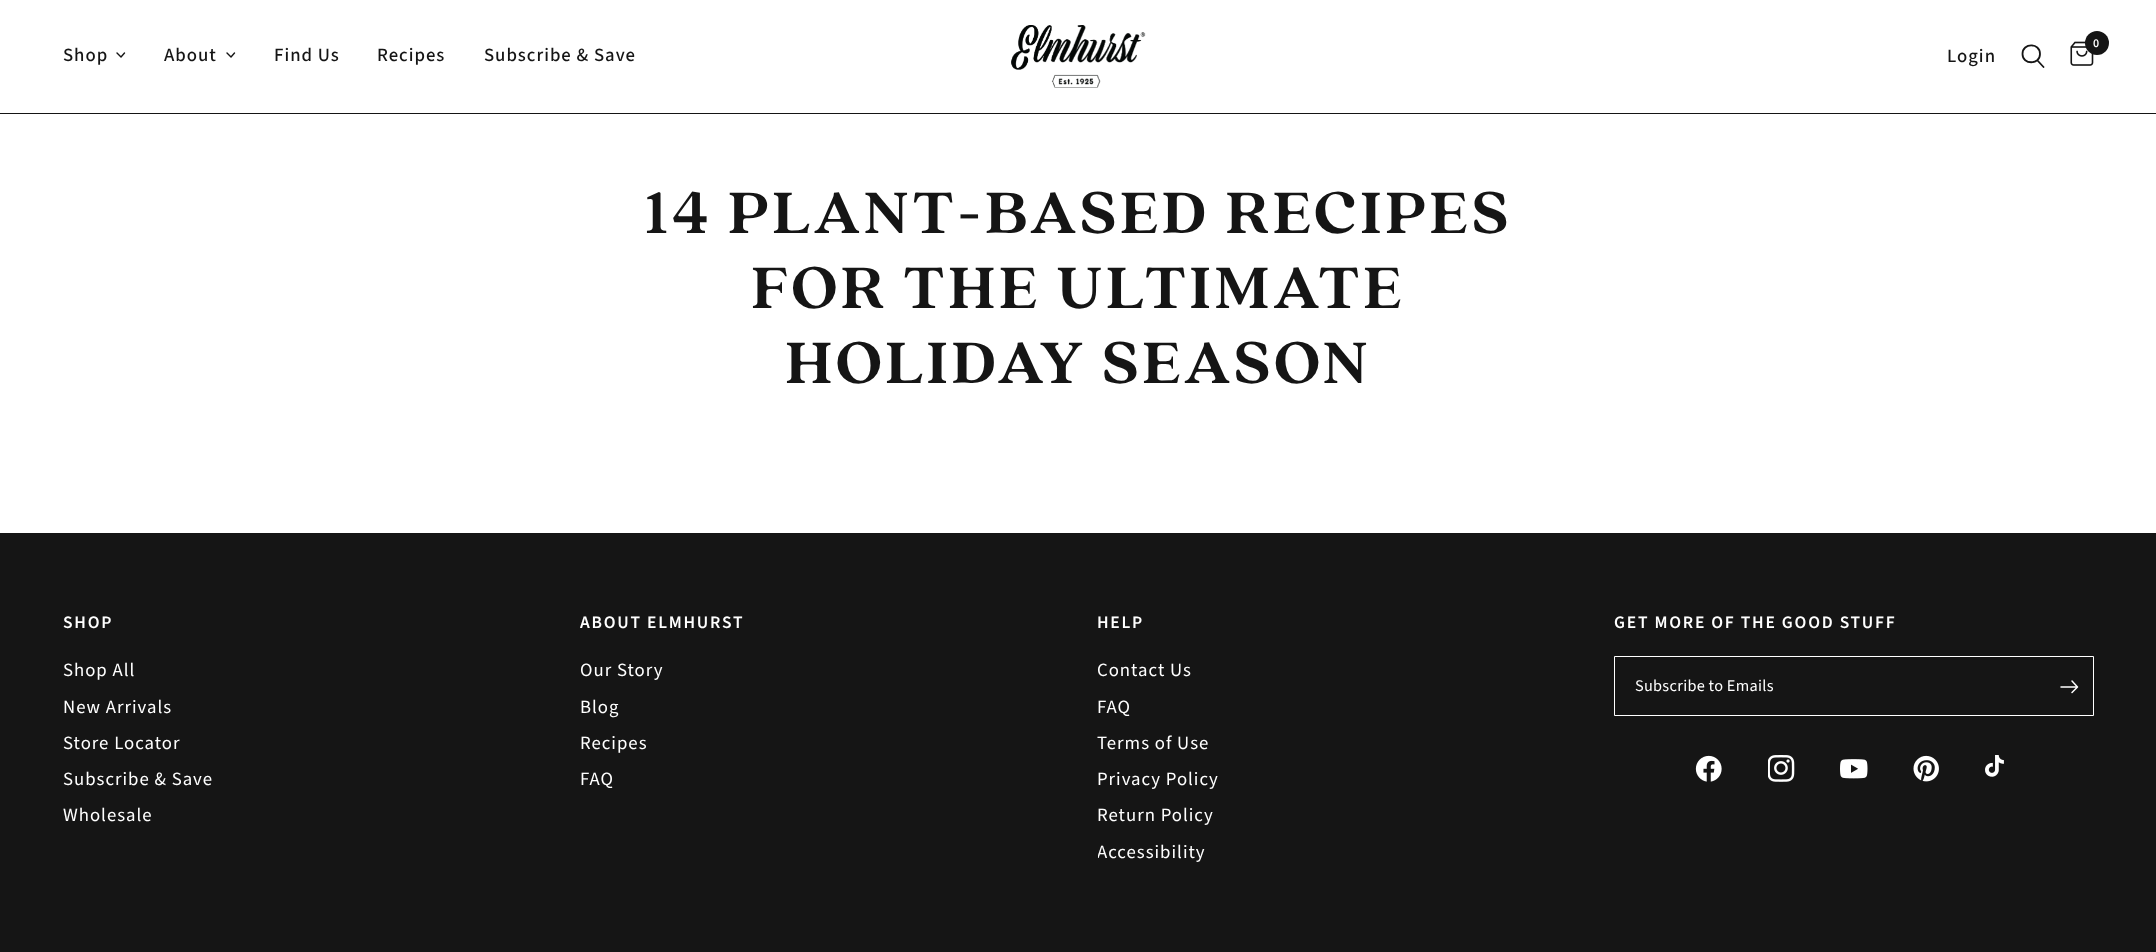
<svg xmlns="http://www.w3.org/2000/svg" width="2156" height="952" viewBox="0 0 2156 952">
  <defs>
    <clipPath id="clip1"><path d="M1098 656h478v212H1098z"/></clipPath>
  </defs>
  <rect width="100%" height="100%" fill="#fff"/>
  <path d="M0 113h2156v1H0z" fill="#151515"/>
  <path d="M124.5 53L121 57L117 53" fill="none" stroke="#151515" stroke-width="1.4" stroke-linecap="round" stroke-linejoin="round"/>
  <path d="M234.5 53L231 57L227 53" fill="none" stroke="#151515" stroke-width="1.4" stroke-linecap="round" stroke-linejoin="round"/>
  <image x="1011" y="25" width="135" height="63" href="img/1.png"/>
  <image x="2070" y="41" width="24" height="25" href="img/2.png"/>
  <circle cx="2097" cy="43" r="12" fill="#151515"/>
  <path d="M2037.5 60.5L2043.5 67M2040 54C2040 65 2022.5 65 2022.5 54C2022.5 42.5 2040 42.5 2040 54Z" fill="none" stroke="#151515" stroke-width="1.8" stroke-linecap="round" stroke-linejoin="round"/>
  <path d="M0 533h2156v419H0z" fill="#151515"/>
  <path d="M1614.5 656.5h479v59H1614.5z" fill="none" stroke="#fff"/>
  <path d="M2061 687H2076M2072 681L2077.5 687L2072 692.5" fill="none" stroke="#fff" stroke-width="1.5" stroke-linecap="round" stroke-linejoin="round"/>
  <image x="1695" y="755" width="27" height="27" href="img/3.png"/>
  <image x="1768" y="755" width="27" height="27" href="img/4.png"/>
  <image x="1840" y="759" width="28" height="20" href="img/5.png"/>
  <image x="1913" y="755" width="26" height="27" href="img/6.png"/>
  <image x="1985" y="755" width="19" height="22" href="img/7.png"/>
  <g font-family="Source Sans Pro" font-size="18.75" font-weight="500" letter-spacing="1" fill="#151515">
    <text x="63" y="61">Shop</text>
    <text x="164" y="61">About</text>
    <text x="274" y="61">Find Us</text>
    <text x="377" y="61">Recipes</text>
    <text x="484" y="61">Subscribe &amp; Save</text>
  </g>
  <text x="2093" y="47" font-family="Source Sans Pro" font-size="12" font-weight="600" letter-spacing="1" fill="#fff">0</text>
  <text x="1947" y="62" font-family="Source Sans Pro" font-size="18.75" font-weight="500" letter-spacing="1" fill="#151515">Login</text>
  <g font-family="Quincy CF" font-size="65" font-weight="bold" letter-spacing="3.25" fill="#151515">
    <text x="645" y="233">14 PLANT-BASED RECIPES</text>
    <text x="751" y="308">FOR THE ULTIMATE</text>
    <text x="785" y="383">HOLIDAY SEASON</text>
  </g>
  <text x="63" y="628" font-family="Source Sans Pro" font-size="17.5" font-weight="600" letter-spacing="1.75" fill="#fff">SHOP</text>
  <g font-family="Source Sans Pro" font-size="18.75" letter-spacing="1" fill="#fff">
    <text x="63" y="676">Shop All</text>
    <text x="63" y="713">New Arrivals</text>
    <text x="63" y="749">Store Locator</text>
    <text x="63" y="785">Subscribe &amp; Save</text>
    <text x="63" y="821">Wholesale</text>
  </g>
  <text x="580" y="628" font-family="Source Sans Pro" font-size="17.5" font-weight="600" letter-spacing="1.75" fill="#fff">ABOUT ELMHURST</text>
  <g font-family="Source Sans Pro" font-size="18.75" letter-spacing="1" fill="#fff">
    <text x="580" y="676">Our Story</text>
    <text x="580" y="713">Blog</text>
    <text x="580" y="749">Recipes</text>
    <text x="580" y="785">FAQ</text>
  </g>
  <text x="1097" y="628" font-family="Source Sans Pro" font-size="17.5" font-weight="600" letter-spacing="1.75" fill="#fff">HELP</text>
  <g font-family="Source Sans Pro" font-size="18.75" letter-spacing="1" fill="#fff">
    <text x="1097" y="676">Contact Us</text>
    <text x="1097" y="713">FAQ</text>
    <text x="1097" y="749">Terms of Use</text>
    <text x="1097" y="785">Privacy Policy</text>
    <text x="1097" y="821">Return Policy</text>
  </g>
  <g clip-path="url(#clip1)">
    <text x="1097" y="858" font-family="Source Sans Pro" font-size="18.75" letter-spacing="1" fill="#fff">Accessibility</text>
  </g>
  <text x="1614" y="628" font-family="Source Sans Pro" font-size="17.5" font-weight="600" letter-spacing="1.75" fill="#fff">GET MORE OF THE GOOD STUFF</text>
  <text x="1635" y="691" font-family="Source Sans Pro" font-size="16.25" letter-spacing="0.3" fill="#fff">Subscribe to Emails</text>
</svg>
